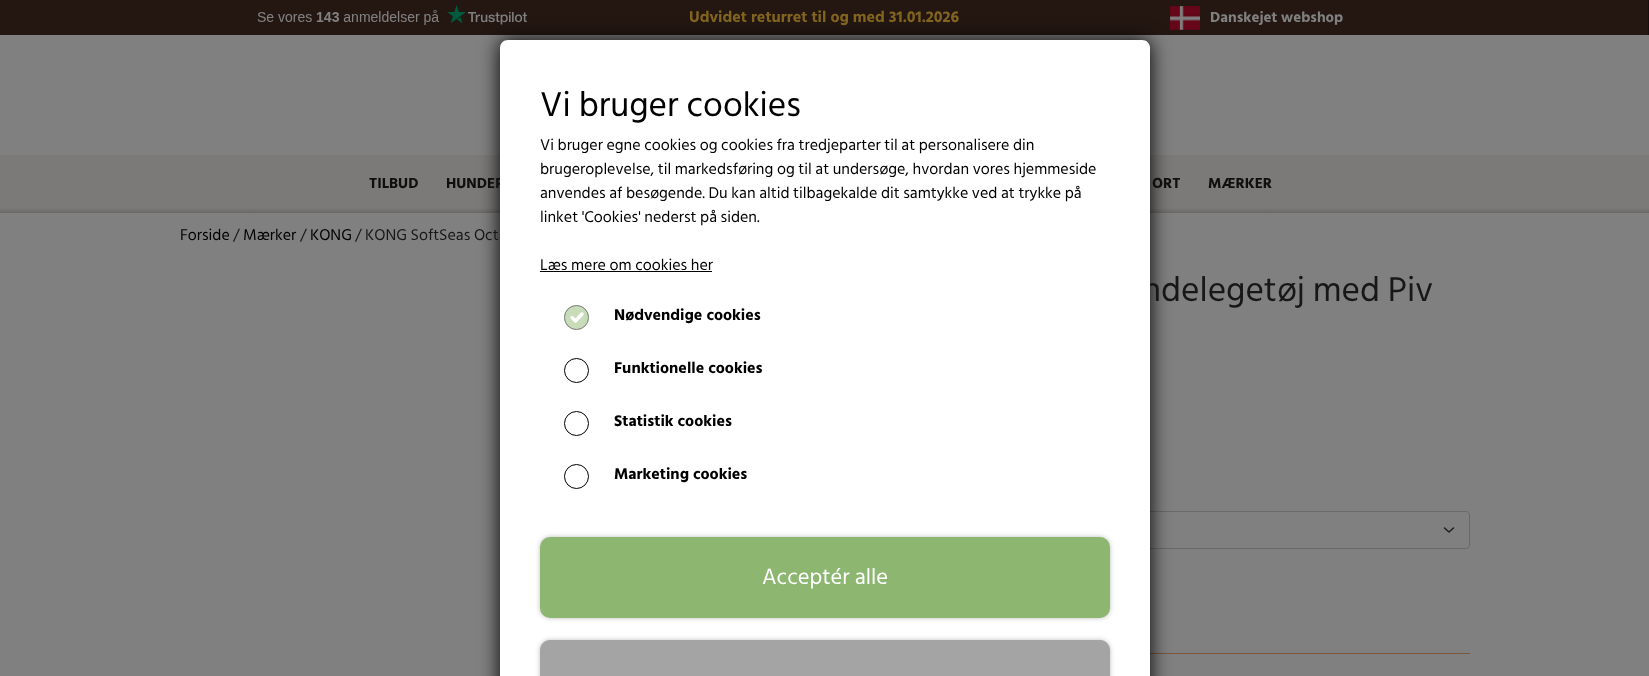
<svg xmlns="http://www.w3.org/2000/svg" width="1649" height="676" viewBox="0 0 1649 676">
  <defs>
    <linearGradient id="g1" gradientUnits="userSpaceOnUse" x1="825" y1="213" x2="825" y2="208"><stop offset="0" stop-color="#696866"/><stop offset="1" stop-color="#7c7a78"/></linearGradient>
  </defs>
  <rect width="100%" height="100%" fill="#170f0c"/>
  <path d="M0 0h1648v35H0z" fill="#241712"/>
  <image x="257" y="5" width="270" height="20" href="img/1.png"/>
  <image x="1170" y="6" width="30" height="24" href="img/2.png"/>
  <path d="M0 35h1649v120H0z" fill="#808080"/>
  <path d="M0 155h1649v53H0z" fill="#7c7a78"/>
  <path d="M0 208h1649v5H0z" fill="url(#g1)"/>
  <path d="M0 213h1649v463H0z" fill="#808080"/>
  <path d="M1444.5 528L1449 532L1453.5 528" fill="none" stroke="#1a1d20" stroke-width="1.5" stroke-linecap="round" stroke-linejoin="round"/>
  <rect x="610.5" y="511.5" width="859" height="37" rx="3.5" fill="none" stroke="#676a6d"/>
  <path d="M1150 653h320v1H1150z" fill="#7c573b"/>
  <rect x="500" y="40" width="650" height="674" rx="8" fill="#000" filter="blur(10px)"/>
  <text x="689" y="22" font-family="Hind Siliguri" font-size="16" font-weight="bold" fill="#80641f">Udvidet returret til og med 31.01.2026</text>
  <text x="1210" y="22" font-family="Hind Siliguri" font-size="15" font-weight="bold" fill="#808080">Danskejet webshop</text>
  <g font-family="Hind Siliguri" font-size="15" font-weight="bold" fill="#0f0f0f">
    <text x="369" y="188">TILBUD</text>
    <text x="446" y="188">HUNDEP</text>
    <text x="1152" y="188">ORT</text>
    <text x="1208" y="188">MÆRKER</text>
  </g>
  <text x="180" y="240" font-family="Hind Siliguri" font-size="16" fill="#000">Forside</text>
  <text x="233" y="240" font-family="Hind Siliguri" font-size="16" fill="#171717">/</text>
  <text x="243" y="240" font-family="Hind Siliguri" font-size="16" fill="#000">Mærker</text>
  <text x="300" y="240" font-family="Hind Siliguri" font-size="16" fill="#171717">/</text>
  <text x="310" y="240" font-family="Hind Siliguri" font-size="16" fill="#000">KONG</text>
  <text x="355" y="240" font-family="Hind Siliguri" font-size="16" fill="#171717">/ KONG SoftSeas Oct</text>
  <text x="1142" y="301" font-family="Hind Siliguri" font-size="35.25" fill="#171717">ndelegetøj med Piv</text>
  <path d="M508 40H1142C1146.5 40 1150 43.5 1150 48V676H500V48C500 43.5 503.5 40 508 40Z" fill="#fff"/>
  <circle cx="576.5" cy="317.5" r="12.5" fill="#c8dcba"/>
  <path d="M572 317.5L575.5 321L582 314" fill="none" stroke="#fff" stroke-width="3.4" stroke-linecap="round" stroke-linejoin="round"/>
  <circle cx="576.5" cy="317.5" r="12" fill="none" stroke="#808080"/>
  <rect x="540" y="640" width="570" height="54" rx="10" fill="#00000040" filter="blur(2.5px)"/>
  <path d="M550 640H1100C1105.5 640 1110 644.5 1110 650V676H540V650C540 644.5 544.5 640 550 640Z" fill="#a4a4a4"/>
  <rect x="540" y="537" width="570" height="81" rx="10" fill="#00000040" filter="blur(2.5px)"/>
  <rect x="540" y="537" width="570" height="81" rx="10" fill="#8db671"/>
  <text x="762" y="584" font-family="Hind Siliguri" font-size="22.5" fill="#fff">Acceptér alle</text>
  <text x="614" y="479" font-family="Hind Siliguri" font-size="16" font-weight="bold" fill="#000">Marketing cookies</text>
  <circle cx="576.5" cy="476.5" r="12" fill="none" stroke="#000"/>
  <text x="614" y="426" font-family="Hind Siliguri" font-size="16" font-weight="bold" fill="#000">Statistik cookies</text>
  <circle cx="576.5" cy="423.5" r="12" fill="none" stroke="#000"/>
  <text x="614" y="373" font-family="Hind Siliguri" font-size="16" font-weight="bold" fill="#000">Funktionelle cookies</text>
  <circle cx="576.5" cy="370.5" r="12" fill="none" stroke="#000"/>
  <text x="614" y="320" font-family="Hind Siliguri" font-size="16" font-weight="bold" fill="#000">Nødvendige cookies</text>
  <text x="540" y="270" font-family="Hind Siliguri" font-size="16" fill="#000">Læs mere om cookies her</text>
  <path d="M540 271h172v1H540z" fill="#000"/>
  <g font-family="Hind Siliguri" font-size="16" fill="#000">
    <text x="540" y="222">linket 'Cookies' nederst på siden.</text>
    <text x="540" y="198">anvendes af besøgende. Du kan altid tilbagekalde dit samtykke ved at trykke på</text>
    <text x="540" y="174">brugeroplevelse, til markedsføring og til at undersøge, hvordan vores hjemmeside</text>
    <text x="540" y="150">Vi bruger egne cookies og cookies fra tredjeparter til at personalisere din</text>
  </g>
  <text x="540" y="116" font-family="Hind Siliguri" font-size="35.25" fill="#000">Vi bruger cookies</text>
</svg>
